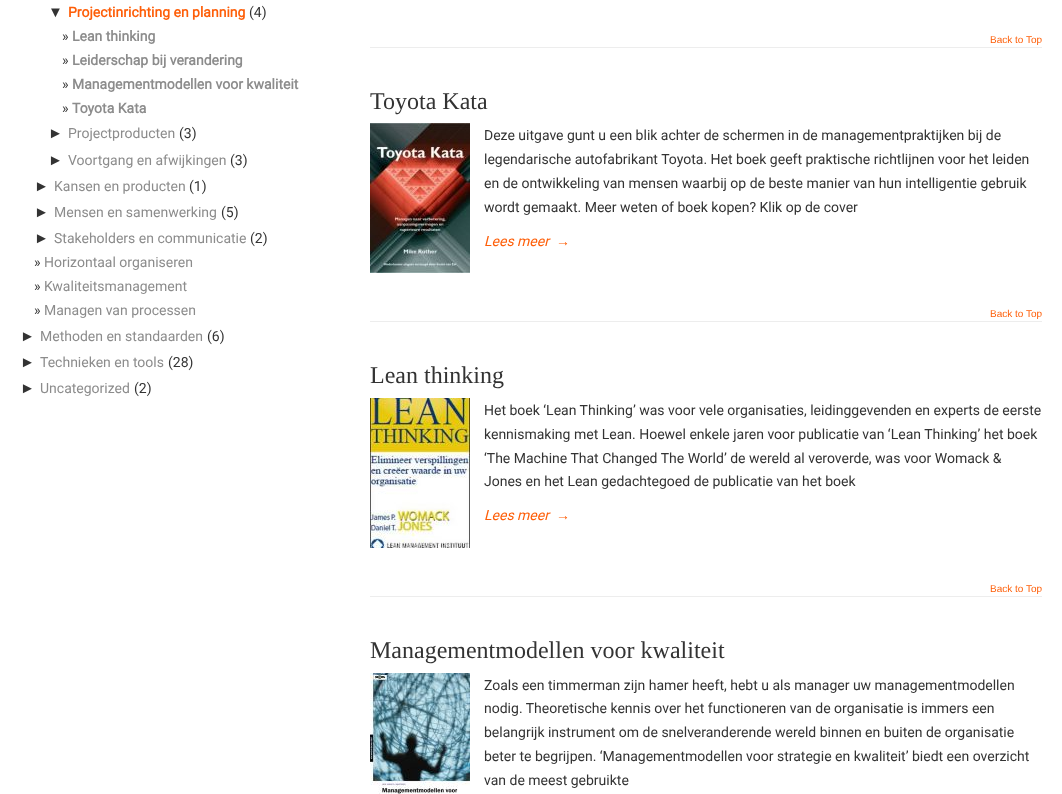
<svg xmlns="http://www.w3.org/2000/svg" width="1062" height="794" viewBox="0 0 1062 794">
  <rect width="100%" height="100%" fill="#fff"/>
  <path d="M370 47h672v1H370z" fill="#ededed"/>
  <image x="370" y="123" width="100" height="150" href="img/1.png"/>
  <path d="M370 321h672v1H370z" fill="#ededed"/>
  <image x="370" y="398" width="100" height="150" href="img/2.png"/>
  <path d="M370 596h672v1H370z" fill="#ededed"/>
  <image x="370" y="673" width="100" height="121" href="img/3.png"/>
  <text x="48" y="17" font-family="Liberation Sans" font-size="15" fill="#333">▼</text>
  <text x="68" y="17" font-family="Roboto" font-size="14" font-weight="bold" fill="#fe5e08">Projectinrichting en planning</text>
  <g font-family="Roboto" font-size="14" fill="#333">
    <text x="249" y="17">(4)</text>
    <text x="62" y="41">»</text>
  </g>
  <text x="72" y="41" font-family="Roboto" font-size="14" font-weight="bold" fill="#8c8c8c">Lean thinking</text>
  <text x="62" y="65" font-family="Roboto" font-size="14" fill="#333">»</text>
  <text x="72" y="65" font-family="Roboto" font-size="14" font-weight="bold" fill="#8c8c8c">Leiderschap bij verandering</text>
  <text x="62" y="89" font-family="Roboto" font-size="14" fill="#333">»</text>
  <text x="72" y="89" font-family="Roboto" font-size="14" font-weight="bold" fill="#8c8c8c">Managementmodellen voor kwaliteit</text>
  <text x="62" y="113" font-family="Roboto" font-size="14" fill="#333">»</text>
  <text x="72" y="113" font-family="Roboto" font-size="14" font-weight="bold" fill="#8c8c8c">Toyota Kata</text>
  <text x="48" y="138" font-family="Liberation Sans" font-size="15" fill="#333">►</text>
  <text x="68" y="138" font-family="Roboto" font-size="14" fill="#8c8c8c">Projectproducten</text>
  <text x="179" y="138" font-family="Roboto" font-size="14" fill="#333">(3)</text>
  <text x="48" y="165" font-family="Liberation Sans" font-size="15" fill="#333">►</text>
  <text x="68" y="165" font-family="Roboto" font-size="14" fill="#8c8c8c">Voortgang en afwijkingen</text>
  <text x="230" y="165" font-family="Roboto" font-size="14" fill="#333">(3)</text>
  <text x="34" y="191" font-family="Liberation Sans" font-size="15" fill="#333">►</text>
  <text x="54" y="191" font-family="Roboto" font-size="14" fill="#8c8c8c">Kansen en producten</text>
  <text x="189" y="191" font-family="Roboto" font-size="14" fill="#333">(1)</text>
  <text x="34" y="217" font-family="Liberation Sans" font-size="15" fill="#333">►</text>
  <text x="54" y="217" font-family="Roboto" font-size="14" fill="#8c8c8c">Mensen en samenwerking</text>
  <text x="221" y="217" font-family="Roboto" font-size="14" fill="#333">(5)</text>
  <text x="34" y="243" font-family="Liberation Sans" font-size="15" fill="#333">►</text>
  <text x="54" y="243" font-family="Roboto" font-size="14" fill="#8c8c8c">Stakeholders en communicatie</text>
  <g font-family="Roboto" font-size="14" fill="#333">
    <text x="250" y="243">(2)</text>
    <text x="34" y="267">»</text>
  </g>
  <text x="44" y="267" font-family="Roboto" font-size="14" fill="#8c8c8c">Horizontaal organiseren</text>
  <text x="34" y="291" font-family="Roboto" font-size="14" fill="#333">»</text>
  <text x="44" y="291" font-family="Roboto" font-size="14" fill="#8c8c8c">Kwaliteitsmanagement</text>
  <text x="34" y="315" font-family="Roboto" font-size="14" fill="#333">»</text>
  <text x="44" y="315" font-family="Roboto" font-size="14" fill="#8c8c8c">Managen van processen</text>
  <text x="20" y="341" font-family="Liberation Sans" font-size="15" fill="#333">►</text>
  <text x="40" y="341" font-family="Roboto" font-size="14" fill="#8c8c8c">Methoden en standaarden</text>
  <text x="207" y="341" font-family="Roboto" font-size="14" fill="#333">(6)</text>
  <text x="20" y="367" font-family="Liberation Sans" font-size="15" fill="#333">►</text>
  <text x="40" y="367" font-family="Roboto" font-size="14" fill="#8c8c8c">Technieken en tools</text>
  <text x="168" y="367" font-family="Roboto" font-size="14" fill="#333">(28)</text>
  <text x="20" y="393" font-family="Liberation Sans" font-size="15" fill="#333">►</text>
  <text x="40" y="393" font-family="Roboto" font-size="14" fill="#8c8c8c">Uncategorized</text>
  <text x="134" y="393" font-family="Roboto" font-size="14" fill="#333">(2)</text>
  <text x="990" y="43" font-family="Liberation Sans" font-size="10" fill="#fe5e08">Back to Top</text>
  <text x="370" y="109" font-family="Liberation Serif" font-size="24" fill="#333">Toyota Kata</text>
  <g font-family="Roboto" font-size="14" fill="#333">
    <text x="484" y="140">Deze uitgave gunt u een blik achter de schermen in de managementpraktijken bij de</text>
    <text x="484" y="164">legendarische autofabrikant Toyota. Het boek geeft praktische richtlijnen voor het leiden</text>
    <text x="484" y="188">en de ontwikkeling van mensen waarbij op de beste manier van hun intelligentie gebruik</text>
    <text x="484" y="212">wordt gemaakt. Meer weten of boek kopen? Klik op de cover</text>
  </g>
  <text x="484" y="246" font-family="Roboto" font-size="14" font-style="italic" fill="#fe5e08">Lees meer</text>
  <text x="556" y="246" font-family="Liberation Sans" font-size="14" fill="#fe5e08">→</text>
  <text x="990" y="317" font-family="Liberation Sans" font-size="10" fill="#fe5e08">Back to Top</text>
  <text x="370" y="383" font-family="Liberation Serif" font-size="24" fill="#333">Lean thinking</text>
  <g font-family="Roboto" font-size="14" fill="#333">
    <text x="484" y="415">Het boek ‘Lean Thinking’ was voor vele organisaties, leidinggevenden en experts de eerste</text>
    <text x="484" y="439">kennismaking met Lean. Hoewel enkele jaren voor publicatie van ‘Lean Thinking’ het boek</text>
    <text x="484" y="463">‘The Machine That Changed The World’ de wereld al veroverde, was voor Womack &amp;</text>
    <text x="484" y="486">Jones en het Lean gedachtegoed de publicatie van het boek</text>
  </g>
  <text x="484" y="520" font-family="Roboto" font-size="14" font-style="italic" fill="#fe5e08">Lees meer</text>
  <text x="556" y="520" font-family="Liberation Sans" font-size="14" fill="#fe5e08">→</text>
  <text x="990" y="592" font-family="Liberation Sans" font-size="10" fill="#fe5e08">Back to Top</text>
  <text x="370" y="658" font-family="Liberation Serif" font-size="24" fill="#333">Managementmodellen voor kwaliteit</text>
  <g font-family="Roboto" font-size="14" fill="#333">
    <text x="484" y="690">Zoals een timmerman zijn hamer heeft, hebt u als manager uw managementmodellen</text>
    <text x="484" y="713">nodig. Theoretische kennis over het functioneren van de organisatie is immers een</text>
    <text x="484" y="737">belangrijk instrument om de snelveranderende wereld binnen en buiten de organisatie</text>
    <text x="484" y="761">beter te begrijpen. ‘Managementmodellen voor strategie en kwaliteit’ biedt een overzicht</text>
    <text x="484" y="785">van de meest gebruikte</text>
  </g>
</svg>
